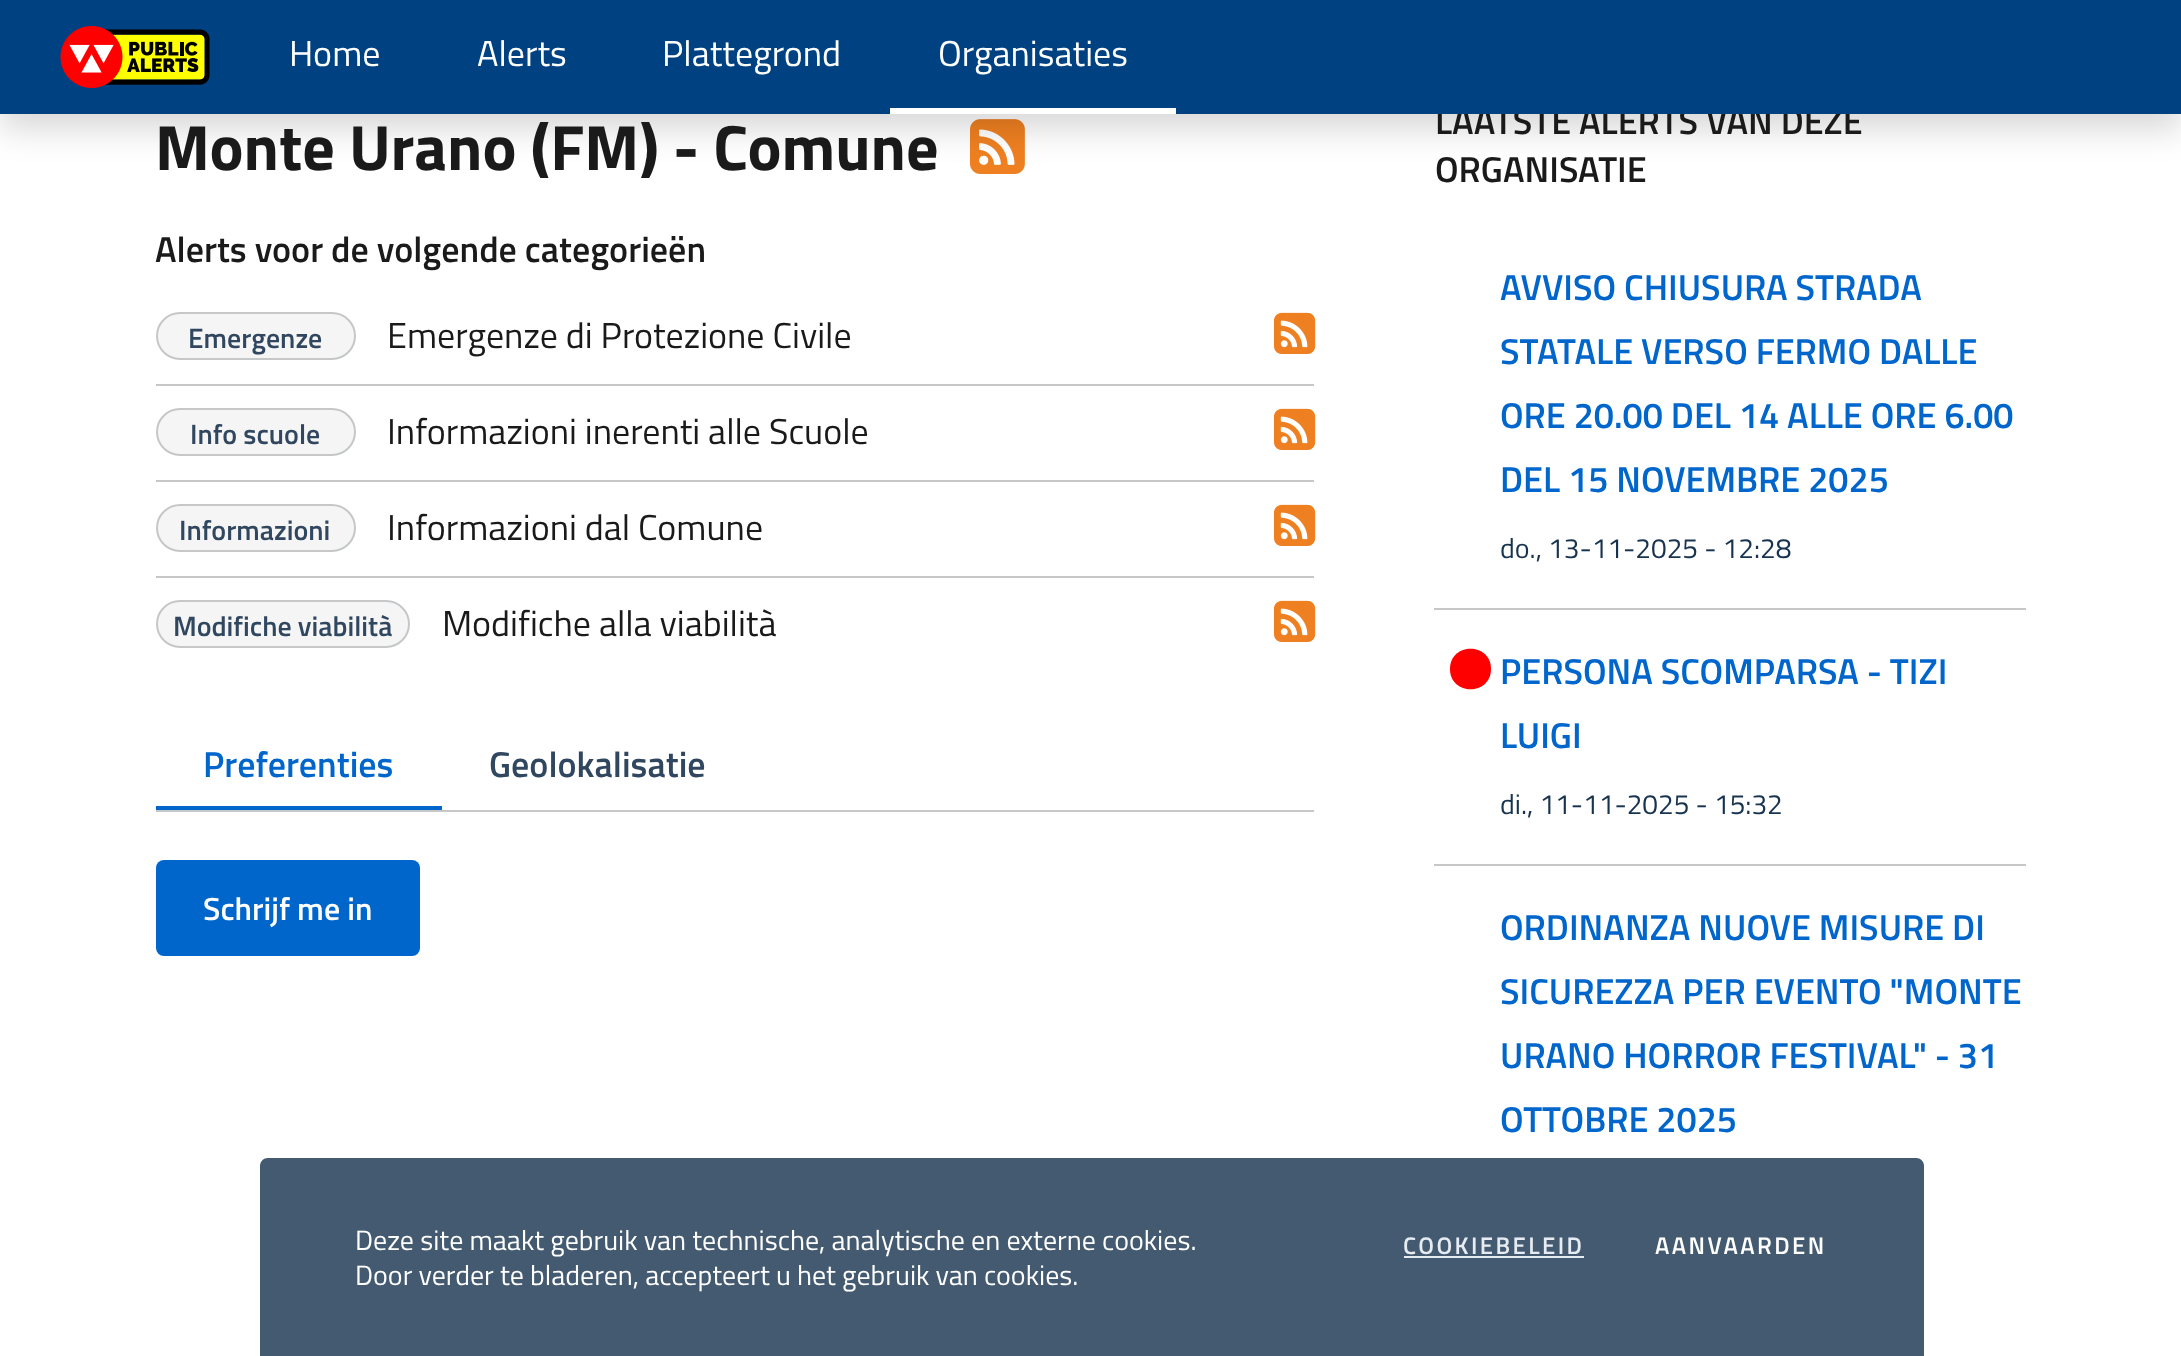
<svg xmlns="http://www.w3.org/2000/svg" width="2181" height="1356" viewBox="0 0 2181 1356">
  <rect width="100%" height="100%" fill="#fff"/>
  <image x="970" y="119" width="55" height="55" href="img/2.png"/>
  <path d="M0 16h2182v114H0z" fill="#00000026" filter="blur(16px)"/>
  <path d="M156 384h1158v2H156z" fill="#c5c7c9"/>
  <rect x="157" y="313" width="198" height="46" rx="23" fill="#f5f5f5" stroke="#c5c7c9" stroke-width="2"/>
  <image x="1274" y="312" width="42" height="42" href="img/3.png"/>
  <path d="M156 480h1158v2H156z" fill="#c5c7c9"/>
  <rect x="157" y="409" width="198" height="46" rx="23" fill="#f5f5f5" stroke="#c5c7c9" stroke-width="2"/>
  <image x="1274" y="408" width="42" height="42" href="img/3.png"/>
  <path d="M156 576h1158v2H156z" fill="#c5c7c9"/>
  <rect x="157" y="505" width="198" height="46" rx="23" fill="#f5f5f5" stroke="#c5c7c9" stroke-width="2"/>
  <image x="1274" y="504" width="42" height="42" href="img/3.png"/>
  <rect x="157" y="601" width="252" height="46" rx="23" fill="#f5f5f5" stroke="#c5c7c9" stroke-width="2"/>
  <image x="1274" y="600" width="42" height="42" href="img/3.png"/>
  <path d="M156 810h1158v2H156z" fill="#c5c7c9"/>
  <path d="M156 806h286v4H156z" fill="#06c"/>
  <rect x="156" y="860" width="264" height="96" rx="8" fill="#06c"/>
  <path d="M1434 608h592v2H1434z" fill="#c5c7c9"/>
  <path d="M1434 864h592v2H1434z" fill="#c5c7c9"/>
  <path d="M1491 669C1491 696 1450 696 1450 669C1450 642 1491 642 1491 669Z" fill="#f00"/>
  <path d="M268 1158H1916C1920.5 1158 1924 1161.5 1924 1166V1356H260V1166C260 1161.5 263.5 1158 268 1158Z" fill="#435a70"/>
  <path d="M1404 1256h180v2H1404z" fill="#e6ecf2"/>
  <text x="155" y="170" font-family="Titillium Web" font-size="64" font-weight="bold" fill="#1a1a1a">Monte Urano (FM) - Comune</text>
  <text x="155" y="262" font-family="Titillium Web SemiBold" font-size="36" font-weight="600" fill="#1a1a1a">Alerts voor de volgende categorieën</text>
  <text x="188" y="348" font-family="Titillium Web SemiBold" font-size="28" font-weight="600" fill="#30475f">Emergenze</text>
  <text x="387" y="348" font-family="Titillium Web" font-size="36" fill="#1a1a1a">Emergenze di Protezione Civile</text>
  <text x="190" y="444" font-family="Titillium Web SemiBold" font-size="28" font-weight="600" fill="#30475f">Info scuole</text>
  <text x="387" y="444" font-family="Titillium Web" font-size="36" fill="#1a1a1a">Informazioni inerenti alle Scuole</text>
  <text x="179" y="540" font-family="Titillium Web SemiBold" font-size="28" font-weight="600" fill="#30475f">Informazioni</text>
  <text x="387" y="540" font-family="Titillium Web" font-size="36" fill="#1a1a1a">Informazioni dal Comune</text>
  <text x="173" y="636" font-family="Titillium Web SemiBold" font-size="28" font-weight="600" fill="#30475f">Modifiche viabilità</text>
  <text x="442" y="636" font-family="Titillium Web" font-size="36" fill="#1a1a1a">Modifiche alla viabilità</text>
  <text x="203" y="777" font-family="Titillium Web SemiBold" font-size="36" font-weight="600" fill="#06c">Preferenties</text>
  <text x="489" y="777" font-family="Titillium Web SemiBold" font-size="36" font-weight="600" fill="#30475f">Geolokalisatie</text>
  <text x="203" y="920" font-family="Titillium Web SemiBold" font-size="32" font-weight="600" fill="#fff">Schrijf me in</text>
  <text x="1435" y="134" font-family="Titillium Web SemiBold" font-size="36" font-weight="600" fill="#1a1a1a">LAATSTE ALERTS VAN DEZE</text>
  <path d="M0 0h2181v114H0z" fill="#004182"/>
  <text x="938" y="66" font-family="Titillium Web" font-size="36" fill="#fff">Organisaties</text>
  <path d="M890 108h286v6H890z" fill="#fff"/>
  <g font-family="Titillium Web" font-size="36" fill="#fff">
    <text x="662" y="66">Plattegrond</text>
    <text x="477" y="66">Alerts</text>
    <text x="289" y="66">Home</text>
  </g>
  <image x="60" y="26" width="150" height="62" href="img/1.png"/>
  <text x="1435" y="182" font-family="Titillium Web SemiBold" font-size="36" font-weight="600" fill="#1a1a1a">ORGANISATIE</text>
  <g font-family="Titillium Web SemiBold" font-size="36" font-weight="600" fill="#06c">
    <text x="1500" y="300">AVVISO CHIUSURA STRADA</text>
    <text x="1500" y="364">STATALE VERSO FERMO DALLE</text>
    <text x="1500" y="428">ORE 20.00 DEL 14 ALLE ORE 6.00</text>
    <text x="1500" y="492">DEL 15 NOVEMBRE 2025</text>
  </g>
  <text x="1500" y="558" font-family="Titillium Web" font-size="28" fill="#17334f">do., 13-11-2025 - 12:28</text>
  <g font-family="Titillium Web SemiBold" font-size="36" font-weight="600" fill="#06c">
    <text x="1500" y="684">PERSONA SCOMPARSA - TIZI</text>
    <text x="1500" y="748">LUIGI</text>
  </g>
  <text x="1500" y="814" font-family="Titillium Web" font-size="28" fill="#17334f">di., 11-11-2025 - 15:32</text>
  <g font-family="Titillium Web SemiBold" font-size="36" font-weight="600" fill="#06c">
    <text x="1500" y="940">ORDINANZA NUOVE MISURE DI</text>
    <text x="1500" y="1004">SICUREZZA PER EVENTO "MONTE</text>
    <text x="1500" y="1068">URANO HORROR FESTIVAL" - 31</text>
    <text x="1500" y="1132">OTTOBRE 2025</text>
  </g>
  <g font-family="Titillium Web" font-size="28" fill="#fff">
    <text x="355" y="1250">Deze site maakt gebruik van technische, analytische en externe cookies.</text>
    <text x="355" y="1285">Door verder te bladeren, accepteert u het gebruik van cookies.</text>
  </g>
  <text x="1403" y="1254" font-family="Titillium Web SemiBold" font-size="24" font-weight="600" letter-spacing="2.4" fill="#e6ecf2">COOKIEBELEID</text>
  <text x="1655" y="1254" font-family="Titillium Web SemiBold" font-size="24" font-weight="600" letter-spacing="2.4" fill="#fff">AANVAARDEN</text>
</svg>
